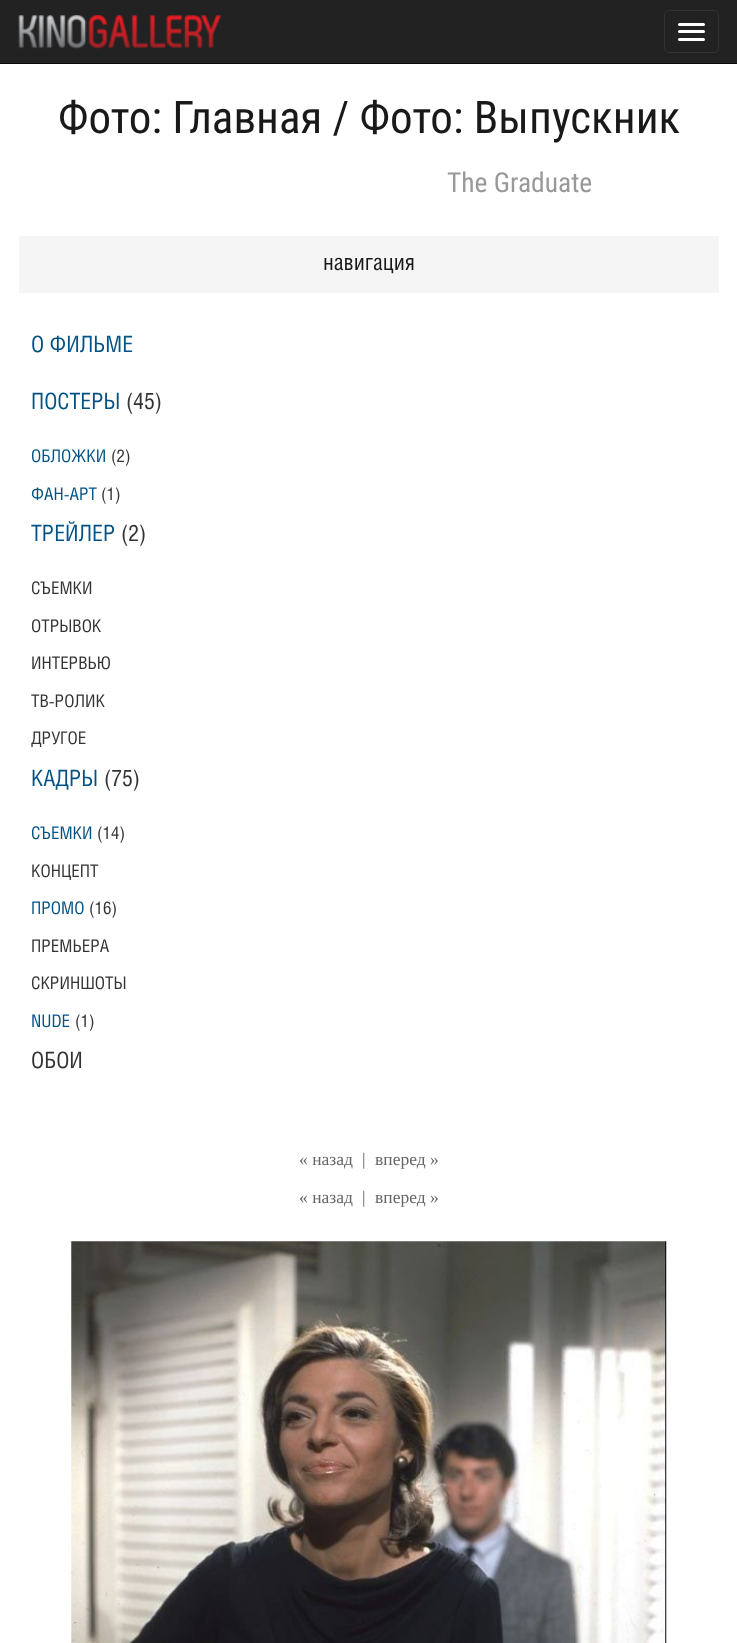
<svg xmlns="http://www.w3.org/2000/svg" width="737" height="1643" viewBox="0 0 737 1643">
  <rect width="100%" height="100%" fill="#fff"/>
  <path d="M0 0h737v63H0z" fill="#222"/>
  <path d="M0 63h737v1H0z" fill="#080808"/>
  <image x="18" y="15" width="204" height="34" href="img/1.png"/>
  <rect x="664.5" y="10.5" width="54" height="42" rx="4.5" fill="none" stroke="#333"/>
  <rect x="678" y="23" width="27" height="3" rx="1.5" fill="#fff"/>
  <rect x="678" y="30" width="27" height="3" rx="1.5" fill="#fff"/>
  <rect x="678" y="38" width="27" height="3" rx="1.5" fill="#fff"/>
  <path d="M19 236h700v57H19z" fill="#f5f5f5"/>
  <image x="71" y="1241" width="596" height="402" href="img/2.png"/>
  <text x="58" y="133" font-family="Roboto Condensed" font-size="45" fill="#191919">Фото: Главная / Фото: Выпускник</text>
  <text x="447" y="192" font-family="Roboto Condensed" font-size="27.5" fill="#999">The Graduate</text>
  <text x="323" y="270" font-family="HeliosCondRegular" font-size="22.5" fill="#191919">навигация</text>
  <g font-family="HeliosCondRegular" font-size="22.5" fill="#025285">
    <text x="31" y="352">О ФИЛЬМЕ</text>
    <text x="31" y="409">ПОСТЕРЫ</text>
  </g>
  <text x="126" y="409" font-family="HeliosCondRegular" font-size="22.5" fill="#333">(45)</text>
  <text x="31" y="462" font-family="HeliosCondRegular" font-size="17.5" fill="#025285">ОБЛОЖКИ</text>
  <text x="111" y="462" font-family="HeliosCondRegular" font-size="17.5" fill="#333">(2)</text>
  <text x="31" y="500" font-family="HeliosCondRegular" font-size="17.5" fill="#025285">ФАН-АРТ</text>
  <text x="101" y="500" font-family="HeliosCondRegular" font-size="17.5" fill="#333">(1)</text>
  <text x="31" y="541" font-family="HeliosCondRegular" font-size="22.5" fill="#025285">ТРЕЙЛЕР</text>
  <text x="121" y="541" font-family="HeliosCondRegular" font-size="22.5" fill="#333">(2)</text>
  <g font-family="HeliosCondRegular" font-size="17.5" fill="#333">
    <text x="31" y="594">СЪЕМКИ</text>
    <text x="31" y="632">ОТРЫВОК</text>
    <text x="31" y="669">ИНТЕРВЬЮ</text>
    <text x="31" y="707">ТВ-РОЛИК</text>
    <text x="31" y="744">ДРУГОЕ</text>
  </g>
  <text x="31" y="786" font-family="HeliosCondRegular" font-size="22.5" fill="#025285">КАДРЫ</text>
  <text x="104" y="786" font-family="HeliosCondRegular" font-size="22.5" fill="#333">(75)</text>
  <text x="31" y="839" font-family="HeliosCondRegular" font-size="17.5" fill="#025285">СЪЕМКИ</text>
  <g font-family="HeliosCondRegular" font-size="17.5" fill="#333">
    <text x="97" y="839">(14)</text>
    <text x="31" y="877">КОНЦЕПТ</text>
  </g>
  <text x="31" y="914" font-family="HeliosCondRegular" font-size="17.5" fill="#025285">ПРОМО</text>
  <g font-family="HeliosCondRegular" font-size="17.5" fill="#333">
    <text x="89" y="914">(16)</text>
    <text x="31" y="952">ПРЕМЬЕРА</text>
    <text x="31" y="989">СКРИНШОТЫ</text>
  </g>
  <text x="31" y="1027" font-family="HeliosCondRegular" font-size="17.5" fill="#025285">NUDE</text>
  <text x="75" y="1027" font-family="HeliosCondRegular" font-size="17.5" fill="#333">(1)</text>
  <text x="31" y="1068" font-family="HeliosCondRegular" font-size="22.5" fill="#333">ОБОИ</text>
  <g font-family="Liberation Serif" font-size="17.5" fill="#666">
    <text x="299" y="1165">« назад</text>
    <text x="362" y="1165">|</text>
    <text x="375" y="1165">вперед »</text>
    <text x="299" y="1203">« назад</text>
    <text x="362" y="1203">|</text>
    <text x="375" y="1203">вперед »</text>
  </g>
</svg>
